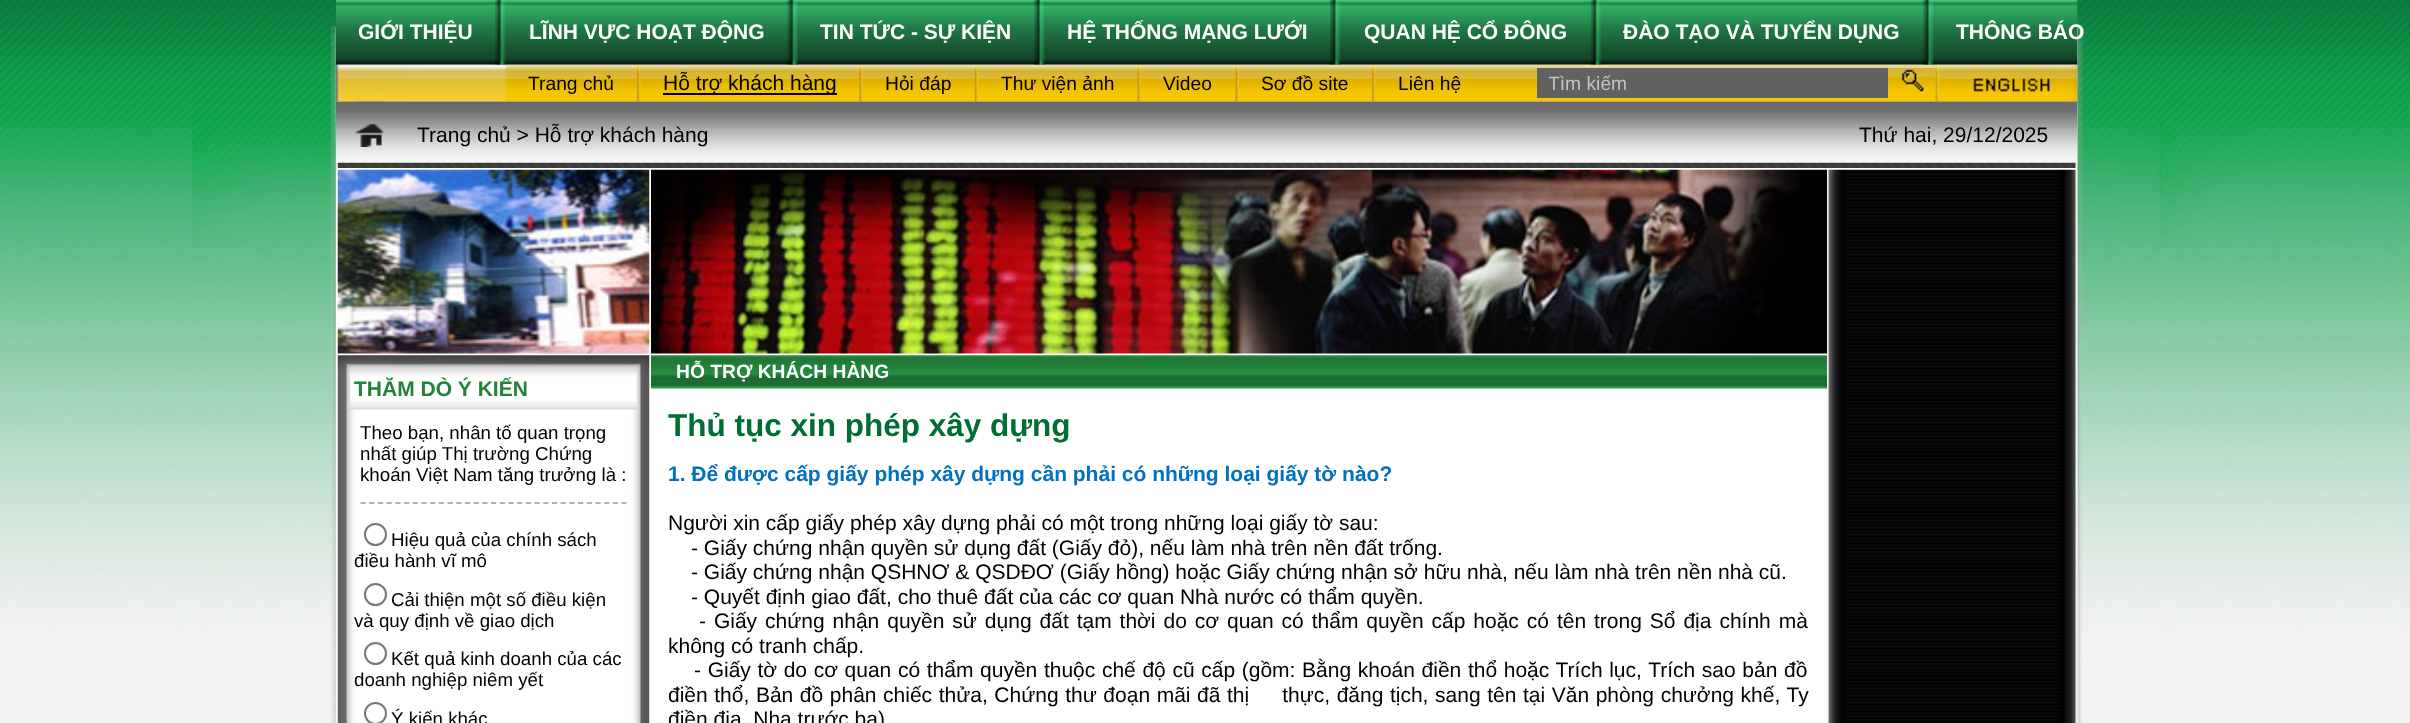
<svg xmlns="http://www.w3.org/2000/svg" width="2410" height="723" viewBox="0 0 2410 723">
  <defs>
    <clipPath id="clip1"><path d="M1549 74h334v21H1549z"/></clipPath>
  </defs>
  <rect width="100%" height="100%" fill="#fff"/>
  <image x="0" y="0" width="2410" height="723" href="img/1.png"/>
  <image x="330" y="0" width="1753" height="723" href="img/2.png"/>
  <image x="336" y="0" width="1742" height="65" href="img/3.png"/>
  <image x="495" y="0" width="11" height="65" href="img/4.png"/>
  <image x="787" y="0" width="11" height="65" href="img/5.png"/>
  <image x="1034" y="0" width="11" height="65" href="img/4.png"/>
  <image x="1330" y="0" width="11" height="65" href="img/6.png"/>
  <image x="1590" y="0" width="12" height="65" href="img/7.png"/>
  <image x="1923" y="0" width="11" height="65" href="img/4.png"/>
  <image x="336" y="64" width="1742" height="38" href="img/8.png"/>
  <image x="637" y="64" width="4" height="38" href="img/9.png"/>
  <path d="M663 93h174v2H663z" fill="#000"/>
  <image x="859" y="64" width="4" height="38" href="img/10.png"/>
  <image x="974" y="64" width="5" height="38" href="img/11.png"/>
  <image x="1137" y="64" width="4" height="38" href="img/12.png"/>
  <image x="1235" y="64" width="4" height="38" href="img/12.png"/>
  <image x="1372" y="64" width="4" height="38" href="img/9.png"/>
  <path d="M1537 68h351v30H1537z" fill="#616161"/>
  <image x="1935" y="64" width="143" height="38" href="img/14.png"/>
  <image x="1888" y="68" width="48" height="28" href="img/13.png"/>
  <image x="336" y="101" width="1742" height="62" href="img/15.png"/>
  <image x="355" y="101" width="29" height="46" href="img/16.png"/>
  <image x="337" y="162" width="1739" height="6" href="img/17.png"/>
  <image x="336" y="169" width="1742" height="554" href="img/18.png"/>
  <image x="337" y="169" width="313" height="185" href="img/19.png"/>
  <image x="337" y="355" width="313" height="368" href="img/20.png"/>
  <path d="M360.5 503H626.5" fill="none" stroke="#b1b1b1" stroke-width="1.8" stroke-dasharray="5.25 3.45"/>
  <circle cx="375.5" cy="534.5" r="10.5" fill="none" stroke="#767676" stroke-width="2"/>
  <circle cx="375.5" cy="594.5" r="10.5" fill="none" stroke="#767676" stroke-width="2"/>
  <circle cx="375.5" cy="653.5" r="10.5" fill="none" stroke="#767676" stroke-width="2"/>
  <circle cx="375.5" cy="713.5" r="10.5" fill="none" stroke="#767676" stroke-width="2"/>
  <image x="651" y="169" width="1176" height="185" href="img/21.png"/>
  <image x="651" y="355" width="1176" height="34" href="img/22.png"/>
  <g font-family="Liberation Sans" font-size="21" font-weight="bold" fill="#fff">
    <text x="358" y="39">GIỚI THIỆU</text>
    <text x="529" y="39">LĨNH VỰC HOẠT ĐỘNG</text>
    <text x="820" y="39">TIN TỨC - SỰ KIỆN</text>
    <text x="1067" y="39">HỆ THỐNG MẠNG LƯỚI</text>
    <text x="1364" y="39">QUAN HỆ CỔ ĐÔNG</text>
    <text x="1623" y="39">ĐÀO TẠO VÀ TUYỂN DỤNG</text>
    <text x="1956" y="39">THÔNG BÁO</text>
  </g>
  <text x="528" y="90" font-family="Liberation Sans" font-size="19.25" fill="#000">Trang chủ</text>
  <text x="663" y="90" font-family="Liberation Sans" font-size="21" fill="#000">Hỗ trợ khách hàng</text>
  <g font-family="Liberation Sans" font-size="19.25" fill="#000">
    <text x="885" y="90">Hỏi đáp</text>
    <text x="1001" y="90">Thư viện ảnh</text>
    <text x="1163" y="90">Video</text>
    <text x="1261" y="90">Sơ đồ site</text>
    <text x="1398" y="90">Liên hệ</text>
  </g>
  <g clip-path="url(#clip1)">
    <text x="1548" y="90" font-family="Liberation Sans" font-size="19.25" fill="#c4c4c4">Tìm kiếm</text>
  </g>
  <g font-family="Liberation Sans" font-size="21" fill="#000">
    <text x="417" y="142">Trang chủ &gt; Hỗ trợ khách hàng</text>
    <text x="1859" y="142">Thứ hai, 29/12/2025</text>
  </g>
  <text x="354" y="396" font-family="Liberation Sans" font-size="21" font-weight="bold" fill="#22823a">THĂM DÒ Ý KIẾN</text>
  <g font-family="Liberation Sans" font-size="18.7" fill="#000">
    <text x="360" y="439">Theo bạn, nhân tố quan trọng</text>
    <text x="360" y="460">nhất giúp Thị trường Chứng</text>
    <text x="360" y="481">khoán Việt Nam tăng trưởng là :</text>
    <text x="391" y="546">Hiệu quả của chính sách</text>
    <text x="354" y="567">điều hành vĩ mô</text>
    <text x="391" y="606">Cải thiện một số điều kiện</text>
    <text x="354" y="627">và quy định về giao dịch</text>
    <text x="391" y="665">Kết quả kinh doanh của các</text>
    <text x="354" y="686">doanh nghiệp niêm yết</text>
    <text x="391" y="725">Ý kiến khác</text>
  </g>
  <text x="676" y="378" font-family="Liberation Sans" font-size="19.25" font-weight="bold" fill="#fff">HỖ TRỢ KHÁCH HÀNG</text>
  <text x="668" y="436" font-family="Liberation Sans" font-size="31.5" font-weight="bold" fill="#006d33">Thủ tục xin phép xây dựng</text>
  <text x="668" y="481" font-family="Liberation Sans" font-size="21" font-weight="bold" fill="#0070c0">1. Để được cấp giấy phép xây dựng cần phải có những loại giấy tờ nào?</text>
  <g font-family="Liberation Sans" font-size="21" fill="#000">
    <text x="668" y="530">Người xin cấp giấy phép xây dựng phải có một trong những loại giấy tờ sau:</text>
    <text x="691" y="555">- Giấy chứng nhận quyền sử dụng đất (Giấy đỏ), nếu làm nhà trên nền đất trống.</text>
    <text x="691" y="579">- Giấy chứng nhận QSHNƠ &amp; QSDĐƠ (Giấy hồng) hoặc Giấy chứng nhận sở hữu nhà, nếu làm nhà trên nền nhà cũ.</text>
    <text x="691" y="604">- Quyết định giao đất, cho thuê đất của các cơ quan Nhà nước có thẩm quyền.</text>
    <text x="699" y="628" word-spacing="2.1">- Giấy chứng nhận quyền sử dụng đất tạm thời do cơ quan có thẩm quyền cấp hoặc có tên trong Sổ địa chính mà</text>
    <text x="668" y="653">không có tranh chấp.</text>
    <text x="694" y="677" word-spacing="0.8">- Giấy tờ do cơ quan có thẩm quyền thuộc chế độ cũ cấp (gồm: Bằng khoán điền thổ hoặc Trích lục, Trích sao bản đồ</text>
    <text x="668" y="702" word-spacing="0.75" xml:space="preserve">điền thổ, Bản đồ phân chiếc thửa, Chứng thư đoạn mãi đã thị     thực, đăng tịch, sang tên tại Văn phòng chưởng khế, Ty</text>
    <text x="668" y="726">điền địa, Nha trước bạ)</text>
  </g>
</svg>
